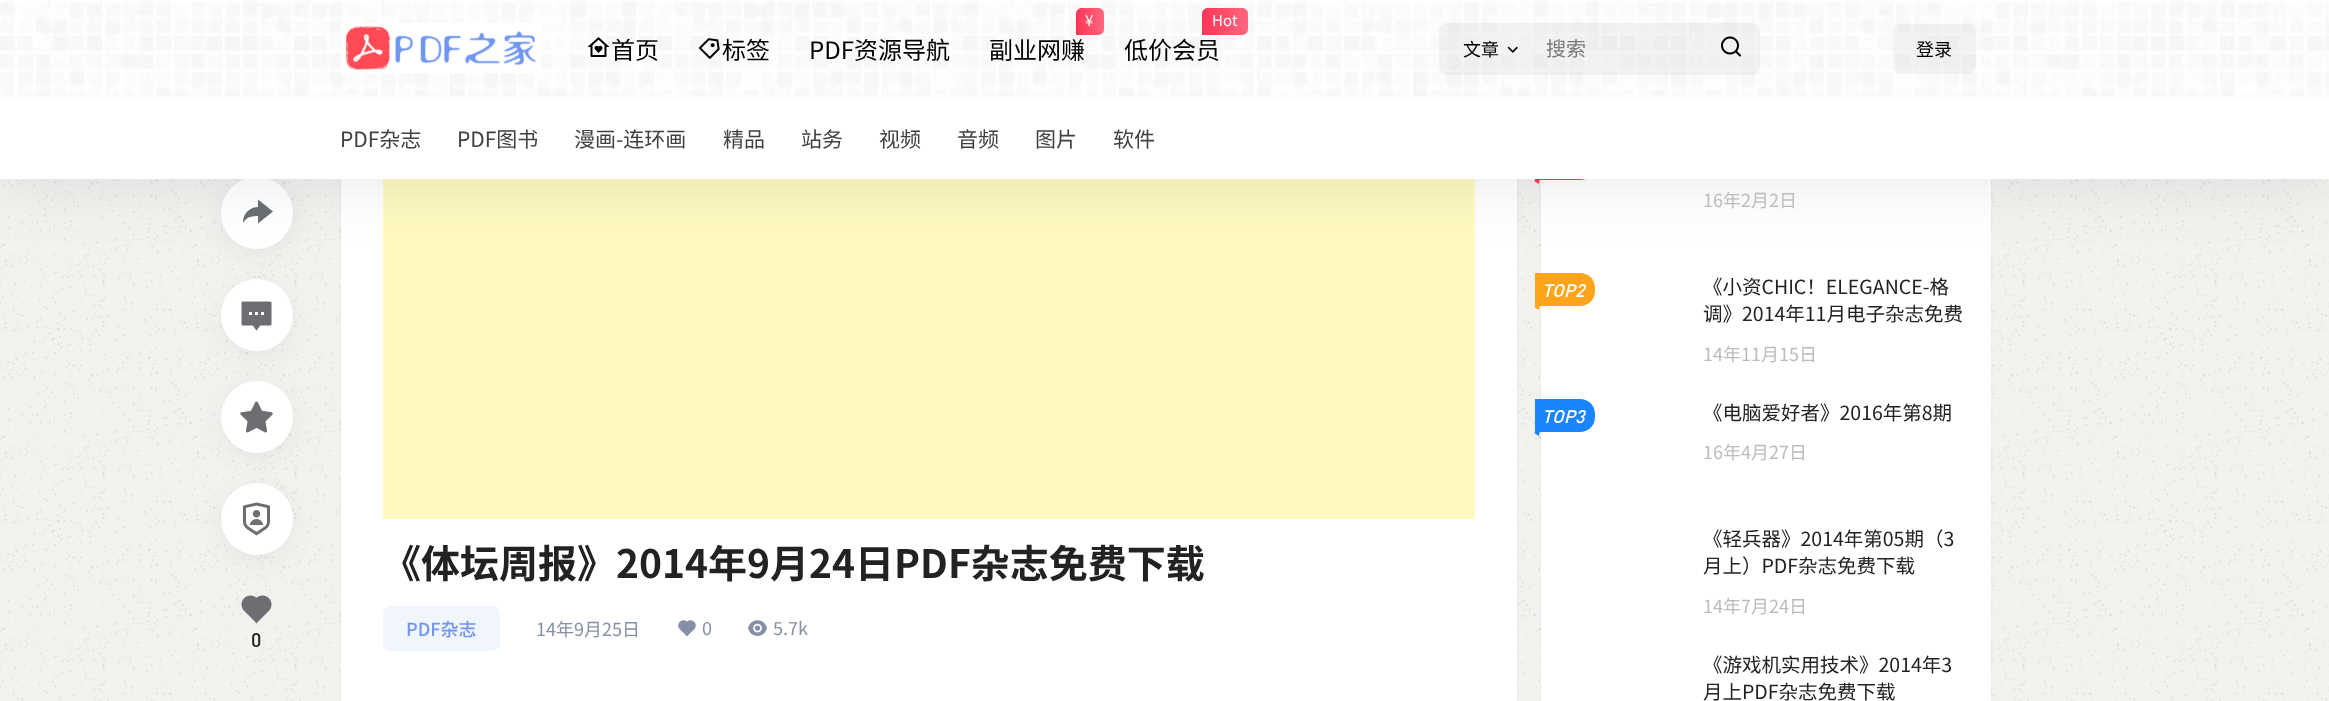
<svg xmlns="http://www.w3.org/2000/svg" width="2329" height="701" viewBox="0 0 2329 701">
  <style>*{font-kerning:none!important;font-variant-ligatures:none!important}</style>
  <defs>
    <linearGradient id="g1" gradientUnits="userSpaceOnUse" x1="1075" y1="20" x2="1104" y2="20"><stop offset="0" stop-color="#f35"/><stop offset="1" stop-color="#ff6780"/></linearGradient>
    <linearGradient id="g2" gradientUnits="userSpaceOnUse" x1="1201" y1="20" x2="1247" y2="20"><stop offset="0" stop-color="#f35"/><stop offset="1" stop-color="#ff6780"/></linearGradient>
    <clipPath id="clip1"><path d="M1547 35h157v28H1547z"/></clipPath>
  </defs>
  <rect width="100%" height="100%" fill="#fff"/>
  <image x="0" y="179" width="2329" height="522" href="img/1.png"/>
  <rect x="341" y="57" width="1176" height="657" rx="8" fill="#627c991a" filter="blur(1.5px)"/>
  <path d="M341 179h1176v522H341z" fill="#fff"/>
  <path d="M383 179h1092v340H383z" fill="#fff9c0"/>
  <rect x="221" y="183" width="72" height="72" rx="36" fill="#0d275b0f" filter="blur(12px)"/>
  <circle cx="257" cy="213" r="36" fill="#fff"/>
  <path d="M258 216C251.5 216 246.5 217 243 223C242.5 214.5 249 207 258 207V199.5L273 211.5L258 223.5Z" fill="#6c6e72"/>
  <rect x="1541" y="57" width="450" height="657" rx="8" fill="#627c991a" filter="blur(1.5px)"/>
  <path d="M1541 179h450v522H1541z" fill="#fff"/>
  <path d="M1535 147H1580C1588.5 147 1595 153.5 1595 162V165C1595 173.5 1588.5 180 1580 180H1535Z" fill="#f35"/>
  <path d="M1539 184L1534 181L1540 177.5Z" fill="#f35"/>
  <path d="M1535 273H1580C1588.5 273 1595 279.5 1595 288V291C1595 299.5 1588.5 306 1580 306H1535Z" fill="#ffa41b"/>
  <path d="M0 8h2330v178H0z" fill="#113a5d1a" filter="blur(30px)"/>
  <image x="0" y="0" width="2329" height="96" href="img/2.png"/>
  <image x="341" y="22" width="201" height="52" href="img/3.png"/>
  <image x="587" y="37" width="23" height="20" href="img/4.png"/>
  <image x="698" y="38" width="22" height="21" href="img/5.png"/>
  <path d="M1082 8H1098C1101.5 8 1104 10.5 1104 14V29C1104 32.5 1101.5 35 1098 35H1076V14C1076 10.5 1078.5 8 1082 8Z" fill="url(#g1)"/>
  <path d="M1208 8H1242C1245.5 8 1248 10.5 1248 14V29C1248 32.5 1245.5 35 1242 35H1202V14C1202 10.5 1204.5 8 1208 8Z" fill="url(#g2)"/>
  <rect x="1439" y="23" width="321" height="52" rx="8" fill="#cccccc36"/>
  <path d="M1534 55h1v8H1534z" fill="#ffffff29"/>
  <image x="1507" y="46" width="11" height="7" href="img/6.png"/>
  <image x="1721" y="36" width="21" height="21" href="img/7.png"/>
  <rect x="1893" y="24" width="83" height="50" rx="8" fill="#cccccc36"/>
  <path d="M0 98h2329v81H0z" fill="#fff"/>
  <path d="M0 96h2329v2H0z" fill="#fcfcfc"/>
  <rect x="383" y="606" width="117" height="45" rx="8" fill="#f1f5fe"/>
  <image x="678" y="620" width="18" height="17" href="img/8.png"/>
  <image x="748" y="620" width="19" height="16" href="img/9.png"/>
  <rect x="221" y="285" width="72" height="72" rx="36" fill="#0d275b0f" filter="blur(12px)"/>
  <circle cx="257" cy="315" r="36" fill="#fff"/>
  <image x="241" y="301" width="31" height="30" href="img/10.png"/>
  <rect x="221" y="387" width="72" height="72" rx="36" fill="#0d275b0f" filter="blur(12px)"/>
  <circle cx="257" cy="417" r="36" fill="#fff"/>
  <image x="240" y="401" width="33" height="32" href="img/11.png"/>
  <image x="241" y="595" width="31" height="29" href="img/13.png"/>
  <rect x="221" y="489" width="72" height="72" rx="36" fill="#0d275b0f" filter="blur(12px)"/>
  <circle cx="257" cy="519" r="36" fill="#fff"/>
  <image x="243" y="502" width="27" height="34" href="img/12.png"/>
  <path d="M1539 310L1534 307L1540 303.5Z" fill="#ffa41b"/>
  <path d="M1535 399H1580C1588.5 399 1595 405.5 1595 414V417C1595 425.5 1588.5 432 1580 432H1535Z" fill="#1a85ff"/>
  <path d="M1539 436L1534 433L1540 429.5Z" fill="#1a85ff"/>
  <g font-family="Noto Sans CJK SC" font-size="24" fill="#000">
    <text x="611" y="59">首页</text>
    <text x="722" y="59">标签</text>
    <text x="809" y="59">PDF资源导航</text>
  </g>
  <text x="1085" y="26" font-family="Noto Sans CJK SC" font-size="15" fill="#fff">¥</text>
  <text x="989" y="59" font-family="Noto Sans CJK SC" font-size="24" fill="#000">副业网赚</text>
  <text x="1212" y="26" font-family="Noto Sans CJK SC" font-size="15" fill="#fff">Hot</text>
  <text x="1124" y="59" font-family="Noto Sans CJK SC" font-size="24" fill="#000">低价会员</text>
  <text x="1463" y="56" font-family="Noto Sans CJK SC" font-size="18" fill="#000">文章</text>
  <g clip-path="url(#clip1)">
    <text x="1546" y="56" font-family="Noto Sans CJK SC" font-size="20" fill="#787878">搜索</text>
  </g>
  <text x="1916" y="56" font-family="Noto Sans CJK SC" font-size="18" fill="#000">登录</text>
  <g font-family="Noto Sans CJK SC" font-size="21" fill="#414141">
    <text x="340" y="147">PDF杂志</text>
    <text x="457" y="147">PDF图书</text>
    <text x="574" y="147">漫画-连环画</text>
    <text x="723" y="147">精品</text>
    <text x="801" y="147">站务</text>
    <text x="879" y="147">视频</text>
    <text x="957" y="147">音频</text>
    <text x="1035" y="147">图片</text>
    <text x="1113" y="147">软件</text>
  </g>
  <text x="382" y="578" font-family="Noto Sans CJK SC" font-size="39" font-weight="bold" fill="#222">《体坛周报》2014年9月24日PDF杂志免费下载</text>
  <text x="406" y="636" font-family="Noto Sans CJK SC" font-size="18" font-weight="500" fill="#7096f1">PDF杂志</text>
  <g font-family="Noto Sans CJK SC" font-size="18" fill="#8590a6">
    <text x="536" y="636">14年9月25日</text>
    <text x="702" y="635">0</text>
    <text x="773" y="635">5.7k</text>
  </g>
  <text x="251" y="647" font-family="DIN" font-size="19.5" font-weight="500" fill="#222">0</text>
  <text x="1703" y="207" font-family="Noto Sans CJK SC" font-size="18" fill="#bcbcbc">16年2月2日</text>
  <text x="1542" y="297" font-family="DIN" font-size="18" font-weight="500" font-style="italic" fill="#fff">TOP2</text>
  <g font-family="Noto Sans CJK SC" font-size="19.5" fill="#222">
    <text x="1703" y="294">《小资CHIC！ELEGANCE-格</text>
    <text x="1703" y="321">调》2014年11月电子杂志免费</text>
  </g>
  <text x="1703" y="361" font-family="Noto Sans CJK SC" font-size="18" fill="#bcbcbc">14年11月15日</text>
  <text x="1542" y="423" font-family="DIN" font-size="18" font-weight="500" font-style="italic" fill="#fff">TOP3</text>
  <text x="1703" y="420" font-family="Noto Sans CJK SC" font-size="19.5" fill="#222">《电脑爱好者》2016年第8期</text>
  <text x="1703" y="459" font-family="Noto Sans CJK SC" font-size="18" fill="#bcbcbc">16年4月27日</text>
  <g font-family="Noto Sans CJK SC" font-size="19.5" fill="#222">
    <text x="1703" y="546">《轻兵器》2014年第05期（3</text>
    <text x="1703" y="573">月上）PDF杂志免费下载</text>
  </g>
  <text x="1703" y="613" font-family="Noto Sans CJK SC" font-size="18" fill="#bcbcbc">14年7月24日</text>
  <g font-family="Noto Sans CJK SC" font-size="19.5" fill="#222">
    <text x="1703" y="672">《游戏机实用技术》2014年3</text>
    <text x="1703" y="699">月上PDF杂志免费下载</text>
  </g>
</svg>
